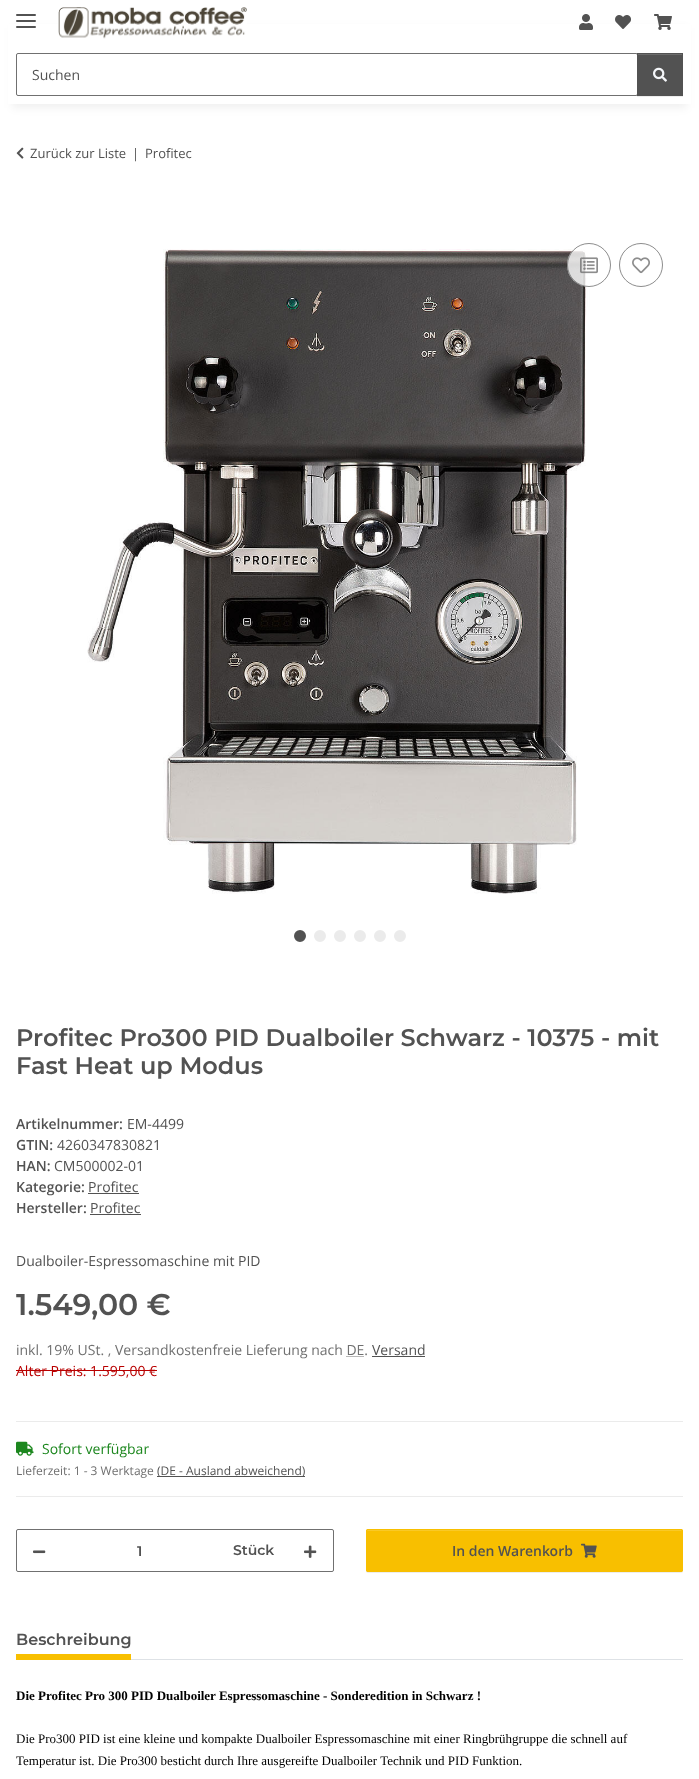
<svg xmlns="http://www.w3.org/2000/svg" width="699" height="1779" viewBox="0 0 699 1779">
  <rect width="100%" height="100%" fill="#fff"/>
  <path d="M12 28h675v80H12z" fill="#0000000f" filter="blur(4.5px)"/>
  <path d="M8 24h683v80H8z" fill="#fff"/>
  <rect x="16" y="20" width="20" height="2" rx="1" fill="#525252"/>
  <rect x="16" y="14" width="20" height="2" rx="1" fill="#525252"/>
  <rect x="16" y="26" width="20" height="2" rx="1" fill="#525252"/>
  <image x="58" y="7" width="189" height="32" href="img/1.png"/>
  <image x="579" y="14" width="14" height="16" href="img/2.png"/>
  <image x="615" y="15" width="16" height="14" href="img/3.png"/>
  <image x="654" y="14" width="18" height="16" href="img/4.png"/>
  <rect x="16.5" y="53.5" width="621" height="42" rx="1.5" fill="none" stroke="#707070"/>
  <path d="M637 54h46v43H637z" fill="#00000012" filter="blur(0.5px)"/>
  <path d="M637 53h46v43H637z" fill="#525252"/>
  <path d="M638 54h44v1H638z" fill="#6c6c6c"/>
  <image x="653" y="67" width="14" height="15" href="img/5.png"/>
  <image x="16" y="147" width="8" height="12" href="img/6.png"/>
  <image x="87" y="249" width="503" height="645" href="img/7.png"/>
  <circle cx="300" cy="936" r="5" fill="#525252" stroke="#525252" stroke-width="2"/>
  <circle cx="320" cy="936" r="5" fill="#ebebeb" stroke="#ebebeb" stroke-width="2"/>
  <circle cx="340" cy="936" r="5" fill="#ebebeb" stroke="#ebebeb" stroke-width="2"/>
  <circle cx="360" cy="936" r="5" fill="#ebebeb" stroke="#ebebeb" stroke-width="2"/>
  <circle cx="380" cy="936" r="5" fill="#ebebeb" stroke="#ebebeb" stroke-width="2"/>
  <circle cx="400" cy="936" r="5" fill="#ebebeb" stroke="#ebebeb" stroke-width="2"/>
  <circle cx="589" cy="265" r="22" fill="#ffffffcc"/>
  <circle cx="589" cy="265" r="21.5" fill="none" stroke="#707070cc"/>
  <image x="580" y="257" width="18" height="17" href="img/8.png"/>
  <circle cx="641" cy="265" r="21.5" fill="none" stroke="#8d8d8d"/>
  <image x="632" y="257" width="18" height="17" href="img/9.png"/>
  <path d="M88 1193h51v1H88z" fill="#525252"/>
  <path d="M90 1214h51v1H90z" fill="#525252"/>
  <path d="M372 1356h53v1H372z" fill="#525252"/>
  <path d="M346.5 1356.5H364.5" fill="none" stroke="#707070" stroke-dasharray="1 1"/>
  <path d="M16 1370h141v1H16z" fill="#b90000"/>
  <path d="M16 1421h667v1H16z" fill="#ebebeb"/>
  <path d="M16 1496h667v1H16z" fill="#ebebeb"/>
  <image x="16" y="1441" width="18" height="15" href="img/10.png"/>
  <path d="M157 1476h148v1H157z" fill="#525252"/>
  <rect x="16.5" y="1529.5" width="317" height="42" rx="1.5" fill="none" stroke="#707070"/>
  <image x="33" y="1550" width="13" height="4" href="img/11.png"/>
  <image x="304" y="1545" width="13" height="13" href="img/12.png"/>
  <rect x="366" y="1530" width="317" height="43" rx="2" fill="#00000012" filter="blur(0.5px)"/>
  <rect x="366" y="1529" width="317" height="43" rx="2" fill="#f8bf00"/>
  <path d="M368 1531H681C682 1531 682 1531 682 1532C682 1531 682 1530 681 1530H368H367V1532C367 1531 367 1531 368 1531Z" fill="#f9c926"/>
  <rect x="366.5" y="1529.5" width="316" height="42" rx="1.5" fill="none" stroke="#f8bf00"/>
  <image x="581" y="1543" width="16" height="15" href="img/13.png"/>
  <path d="M131 1659h552v1H131z" fill="#dee2e6"/>
  <path d="M16 1654h115v6H16z" fill="#f8bf00"/>
  <text x="32" y="80" font-family="Open Sans" font-size="14" fill="#525252">Suchen</text>
  <g font-family="Open Sans" font-size="13" fill="#525252">
    <text x="30" y="158">Zurück zur Liste</text>
    <text x="132" y="158">|</text>
    <text x="145" y="158">Profitec</text>
  </g>
  <g font-family="Montserrat" font-size="24" font-weight="600" fill="#525252">
    <text x="16" y="1046">Profitec Pro300 PID Dualboiler Schwarz - 10375 - mit</text>
    <text x="16" y="1074">Fast Heat up Modus</text>
  </g>
  <text x="16" y="1129" font-family="Open Sans" font-size="14" font-weight="600" fill="#525252">Artikelnummer:</text>
  <text x="127" y="1129" font-family="Open Sans" font-size="14" fill="#525252">EM-4499</text>
  <text x="16" y="1150" font-family="Open Sans" font-size="14" font-weight="600" fill="#525252">GTIN:</text>
  <text x="57" y="1150" font-family="Open Sans" font-size="14" fill="#525252">4260347830821</text>
  <text x="16" y="1171" font-family="Open Sans" font-size="14" font-weight="600" fill="#525252">HAN:</text>
  <text x="54" y="1171" font-family="Open Sans" font-size="14" fill="#525252">CM500002-01</text>
  <text x="16" y="1192" font-family="Open Sans" font-size="14" font-weight="600" fill="#525252">Kategorie:</text>
  <text x="88" y="1192" font-family="Open Sans" font-size="14" fill="#525252">Profitec</text>
  <text x="16" y="1213" font-family="Open Sans" font-size="14" font-weight="600" fill="#525252">Hersteller:</text>
  <g font-family="Open Sans" font-size="14" fill="#525252">
    <text x="90" y="1213">Profitec</text>
    <text x="16" y="1266">Dualboiler-Espressomaschine mit PID</text>
  </g>
  <text x="16" y="1315" font-family="Montserrat" font-size="30" font-weight="600" fill="#525252">1.549,00 €</text>
  <text x="16" y="1355" font-family="Open Sans" font-size="14" fill="#707070">inkl. 19% USt. , Versandkostenfreie Lieferung nach DE.</text>
  <text x="372" y="1355" font-family="Open Sans" font-size="14" fill="#525252">Versand</text>
  <text x="16" y="1376" font-family="Open Sans" font-size="14" fill="#b90000">Alter Preis: 1.595,00 €</text>
  <text x="42" y="1454" font-family="Open Sans" font-size="14" fill="#1c871e">Sofort verfügbar</text>
  <text x="16" y="1475" font-family="Open Sans" font-size="12" fill="#707070">Lieferzeit: 1 - 3 Werktage</text>
  <text x="157" y="1475" font-family="Open Sans" font-size="12" fill="#525252">(DE - Ausland abweichend)</text>
  <g font-family="Montserrat" font-size="14" font-weight="600" fill="#525252">
    <text x="137" y="1556">1</text>
    <text x="233" y="1555">Stück</text>
  </g>
  <text x="452" y="1556" font-family="Open Sans" font-size="14" font-weight="600" fill="#525252">In den Warenkorb</text>
  <text x="16" y="1645" font-family="Montserrat" font-size="16" font-weight="600" fill="#525252">Beschreibung</text>
  <text x="16" y="1700" font-family="Liberation Serif" font-size="13" font-weight="bold" fill="#000">Die Profitec Pro 300 PID Dualboiler Espressomaschine - Sonderedition in Schwarz !</text>
  <g font-family="Liberation Serif" font-size="13" fill="#000">
    <text x="16" y="1743">Die Pro300 PID ist eine kleine und kompakte Dualboiler Espressomaschine mit einer Ringbrühgruppe die schnell auf</text>
    <text x="16" y="1765">Temperatur ist. Die Pro300 besticht durch Ihre ausgereifte Dualboiler Technik und PID Funktion.</text>
  </g>
</svg>
